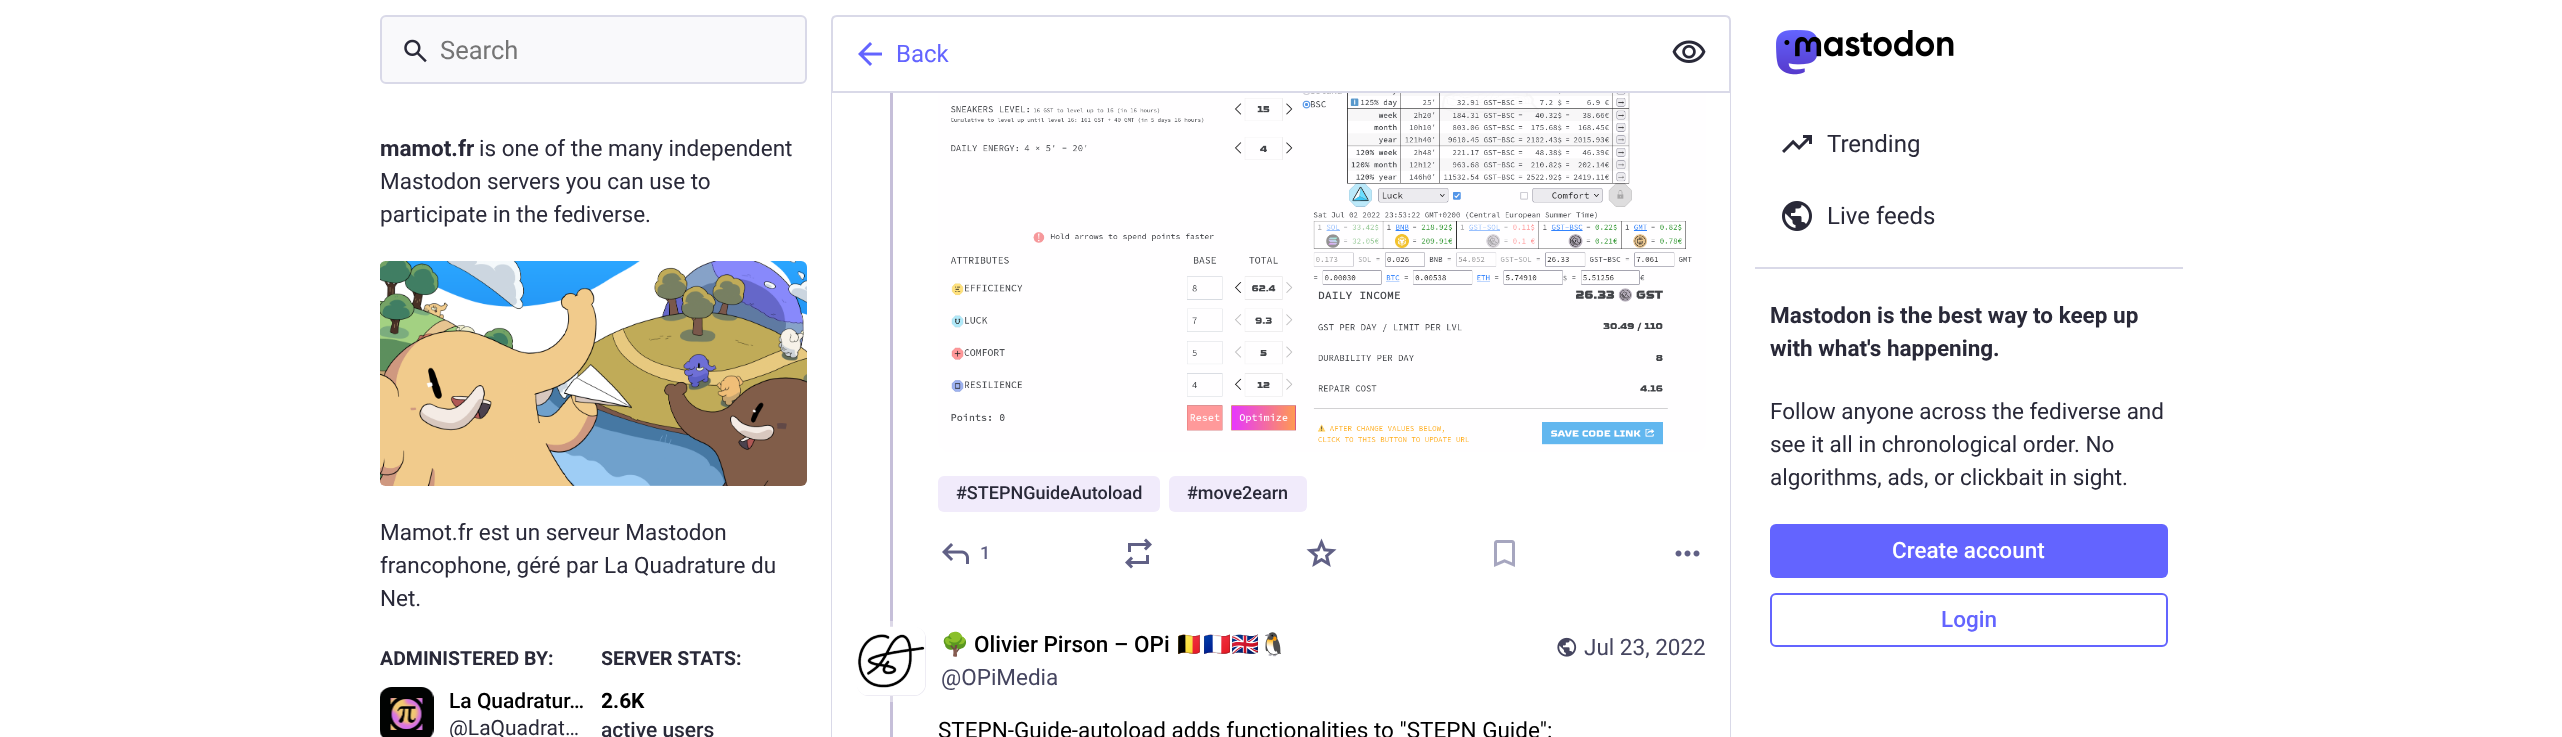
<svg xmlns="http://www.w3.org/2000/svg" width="2562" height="737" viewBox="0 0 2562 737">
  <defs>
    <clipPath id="clip1"><path d="M602 645h205v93H602z"/></clipPath>
    <clipPath id="clip2"><path d="M941 629h346v66H941z"/></clipPath>
  </defs>
  <rect width="100%" height="100%" fill="#fff"/>
  <rect x="381" y="16" width="425" height="67" rx="5" fill="#f9f9fb" stroke="#d9d9e8" stroke-width="2"/>
  <image x="404" y="39" width="23" height="24" href="img/1.png"/>
  <image x="380" y="261" width="427" height="225" href="img/2.png"/>
  <rect x="380" y="687" width="54" height="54" rx="12" fill="#e8e6f0"/>
  <image x="380" y="687" width="54" height="50" href="img/3.png"/>
  <path d="M831-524H1731V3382C1731 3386 1728 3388 1725 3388H837C834 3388 831 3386 831 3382ZM832-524H1730V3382C1730 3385 1727 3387 1725 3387H837C835 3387 832 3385 832 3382Z" fill="#d9d9e8" fill-rule="evenodd"/>
  <image x="946" y="93" width="746" height="352" href="img/6.png"/>
  <path d="M950-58H1694C1701-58 1706-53 1706-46V440C1706 447 1701 452 1694 452H950C943 452 938 447 938 440V-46C938-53 943-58 950-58Z" fill="#fcf8ff26"/>
  <path d="M831 0h900v91H831z" fill="#fff"/>
  <path d="M837 16H1725C1728 16 1730 18 1730 21V92H832V21C832 18 834 16 837 16Z" fill="none" stroke="#d9d9e8" stroke-width="2"/>
  <image x="858" y="42" width="24" height="24" href="img/4.png"/>
  <image x="1672" y="40" width="34" height="23" href="img/5.png"/>
  <path d="M890 93h3v644H890z" fill="#c6bfd9"/>
  <rect x="938" y="476" width="222" height="36" rx="6" fill="#f1ebfb"/>
  <rect x="1169" y="476" width="138" height="36" rx="6" fill="#f1ebfb"/>
  <image x="942" y="543" width="27" height="21" href="img/7.png"/>
  <image x="1125" y="538" width="27" height="31" href="img/8.png"/>
  <image x="1306" y="538" width="31" height="29" href="img/9.png"/>
  <image x="1494" y="540" width="21" height="27" href="img/10.png"/>
  <image x="1675" y="550" width="25" height="7" href="img/11.png"/>
  <path d="M890 621h3v81H890z" fill="#ddd9e8"/>
  <rect x="857" y="627" width="69" height="69" rx="12" fill="#e8e6f0"/>
  <image x="857" y="626" width="69" height="70" href="img/12.png"/>
  <image x="1557" y="637" width="20" height="20" href="img/13.png"/>
  <image x="1776" y="30" width="178" height="45" href="img/14.png"/>
  <image x="1782" y="135" width="30" height="18" href="img/15.png"/>
  <image x="1782" y="201" width="30" height="30" href="img/16.png"/>
  <path d="M1755 267h428v2H1755z" fill="#d9d9e8"/>
  <rect x="1770" y="524" width="398" height="54" rx="6" fill="#6364ff"/>
  <rect x="1771" y="594" width="396" height="52" rx="5" fill="none" stroke="#6364ff" stroke-width="2"/>
  <text x="440" y="59" font-family="Roboto" font-size="25.5" fill="#757575">Search</text>
  <text x="380" y="156" font-family="Roboto" font-size="22.5" font-weight="bold" fill="#292938">mamot.fr</text>
  <g font-family="Roboto" font-size="22.5" fill="#292938">
    <text x="479" y="156">is one of the many independent</text>
    <text x="380" y="189">Mastodon servers you can use to</text>
    <text x="380" y="222">participate in the fediverse.</text>
    <text x="380" y="540">Mamot.fr est un serveur Mastodon</text>
    <text x="380" y="573">francophone, géré par La Quadrature du</text>
    <text x="380" y="606">Net.</text>
  </g>
  <text x="380" y="665" font-family="Roboto" font-size="19.5" font-weight="bold" fill="#292938">ADMINISTERED BY:</text>
  <text x="449" y="708" font-family="Roboto" font-size="21" font-weight="500" fill="#000">La Quadratur…</text>
  <text x="449" y="735" font-family="Roboto" font-size="21" fill="#292938">@LaQuadrat…</text>
  <g clip-path="url(#clip1)">
    <text x="601" y="665" font-family="Roboto" font-size="19.5" font-weight="bold" fill="#292938">SERVER STATS:</text>
    <text x="601" y="708" font-family="Roboto" font-size="21" font-weight="bold" fill="#000">2.6</text>
  </g>
  <text x="631" y="708" font-family="Roboto" font-size="21" font-weight="bold" fill="#000">K</text>
  <g clip-path="url(#clip1)">
    <text x="601" y="737" font-family="Roboto" font-size="21" font-weight="500" fill="#292938">active users</text>
  </g>
  <text x="896" y="62" font-family="Roboto" font-size="24" fill="#6364ff">Back</text>
  <g font-family="Roboto" font-size="18" font-weight="500" fill="#292938">
    <text x="956" y="499">#STEPNGuideAutoload</text>
    <text x="1187" y="499">#move2earn</text>
  </g>
  <text x="980" y="559" font-family="Roboto" font-size="18" font-weight="500" fill="#606085">1</text>
  <g clip-path="url(#clip2)">
    <text x="941" y="652" font-family="Noto Color Emoji" font-size="22.5" fill="#000">🌳</text>
  </g>
  <text x="974" y="652" font-family="Roboto" font-size="22.5" font-weight="500" fill="#000">Olivier Pirson – OPi</text>
  <text x="1175" y="652" font-family="Noto Color Emoji" font-size="22.5" fill="#000">🇧🇪🇫🇷🇬🇧🐧</text>
  <g font-family="Roboto" font-size="22.5" fill="#45455f">
    <text x="941" y="685">@OPiMedia</text>
    <text x="1584" y="655">Jul 23, 2022</text>
  </g>
  <text x="938" y="738" font-family="Roboto" font-size="22.5" fill="#000">STEPN-Guide-autoload adds functionalities to "STEPN Guide":</text>
  <g font-family="Roboto" font-size="24" fill="#292938">
    <text x="1827" y="152">Trending</text>
    <text x="1827" y="224">Live feeds</text>
  </g>
  <g font-family="Roboto" font-size="22.5" font-weight="bold" fill="#292938">
    <text x="1770" y="323">Mastodon is the best way to keep up</text>
    <text x="1770" y="356">with what's happening.</text>
  </g>
  <g font-family="Roboto" font-size="22.5" fill="#292938">
    <text x="1770" y="419">Follow anyone across the fediverse and</text>
    <text x="1770" y="452">see it all in chronological order. No</text>
    <text x="1770" y="485">algorithms, ads, or clickbait in sight.</text>
  </g>
  <text x="1892" y="558" font-family="Roboto" font-size="22.5" font-weight="500" fill="#fff">Create account</text>
  <text x="1941" y="627" font-family="Roboto" font-size="22.5" font-weight="500" fill="#6364ff">Login</text>
</svg>
